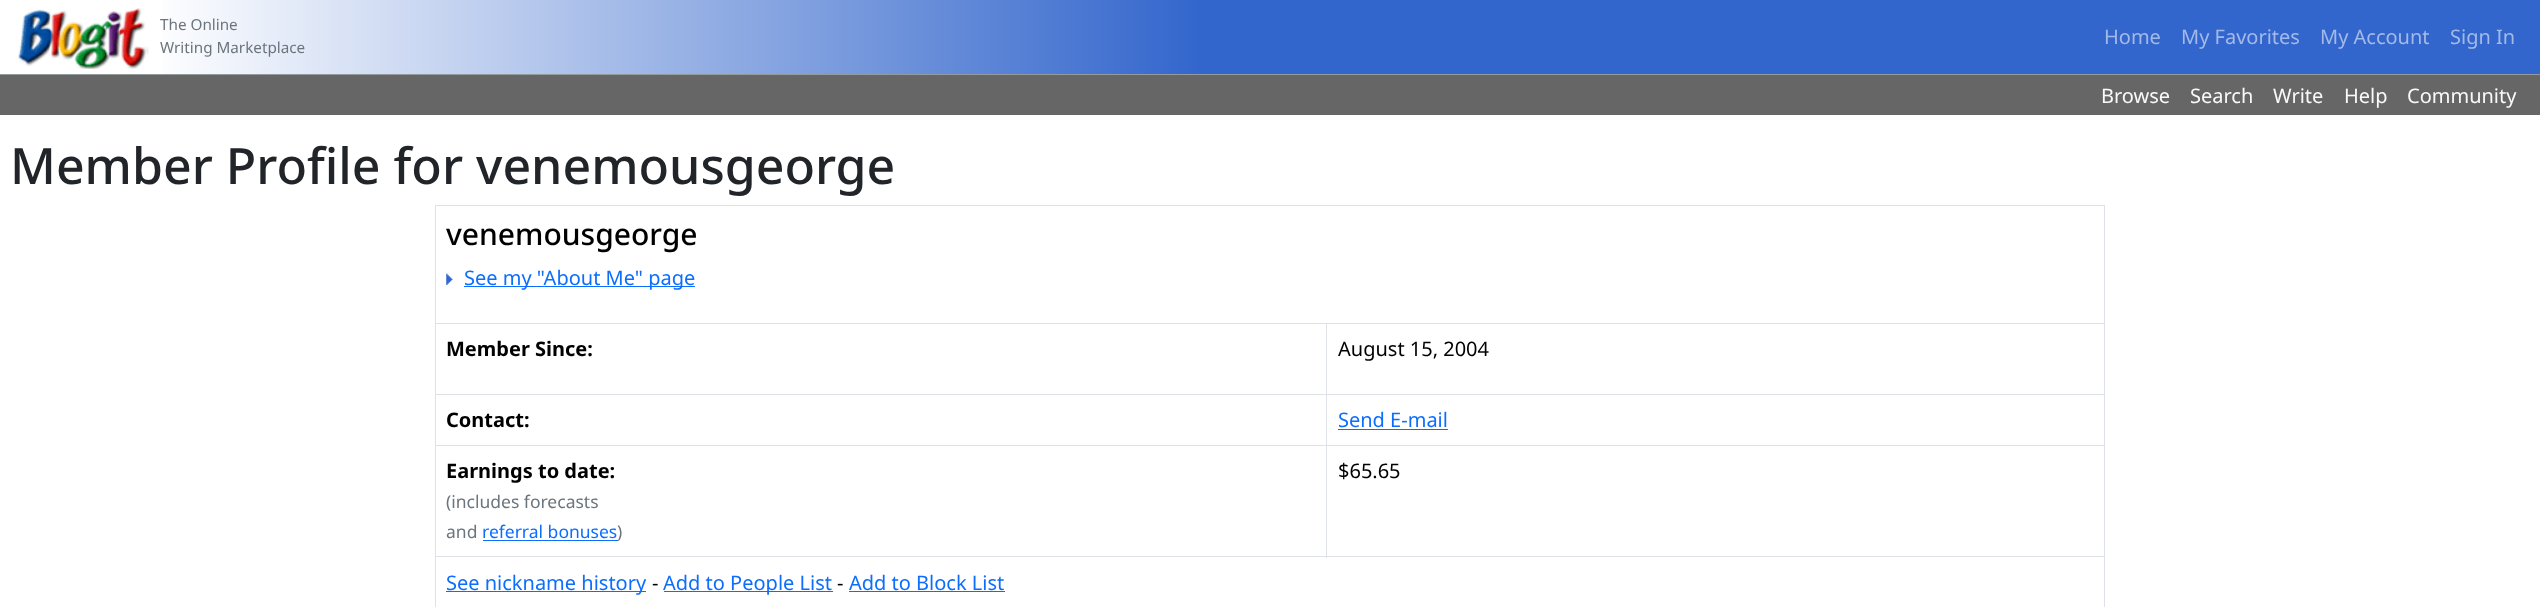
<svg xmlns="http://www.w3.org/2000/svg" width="2540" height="607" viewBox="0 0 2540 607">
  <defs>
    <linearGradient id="g1" gradientUnits="userSpaceOnUse" x1="150" y1="37" x2="1200" y2="37"><stop offset="0" stop-color="#fff"/><stop offset="1" stop-color="#36c"/></linearGradient>
  </defs>
  <rect width="100%" height="100%" fill="#fff"/>
  <path d="M1200 0h1340v74H1200z" fill="#36c"/>
  <path d="M0 74h2540v1H0z" fill="#939b9d"/>
  <image x="18" y="8" width="131" height="61" href="img/1.png"/>
  <path d="M163 0h1037v74H163z" fill="url(#g1)"/>
  <path d="M0 75h2540v40H0z" fill="#666"/>
  <path d="M435 205h1670v1H435z" fill="#dee2e6"/>
  <image x="446" y="273" width="7" height="12" href="img/2.png"/>
  <path d="M464 286h231v1H464z" fill="#0d6efd"/>
  <path d="M435 323h1670v1H435z" fill="#dee2e6"/>
  <path d="M435 394h1670v1H435z" fill="#dee2e6"/>
  <path d="M1338 429h110v1H1338z" fill="#0d6efd"/>
  <path d="M435 445h1670v1H435z" fill="#dee2e6"/>
  <path d="M483 540h135v1H483z" fill="#0d6efd"/>
  <path d="M435 556h1670v1H435z" fill="#dee2e6"/>
  <path d="M1326 323h1v235H1326z" fill="#dee2e6"/>
  <path d="M2104 205h1v402H2104z" fill="#dee2e6"/>
  <path d="M435 205h1v402H435z" fill="#dee2e6"/>
  <path d="M446 591h200v1H446z" fill="#0d6efd"/>
  <path d="M664 591h169v1H664z" fill="#0d6efd"/>
  <path d="M849 591h156v1H849z" fill="#0d6efd"/>
  <g font-family="Noto Sans" font-size="15.25" fill="#6c757d">
    <text x="160" y="30">The Online</text>
    <text x="160" y="53">Writing Marketplace</text>
  </g>
  <g font-family="Noto Sans" font-size="20" fill="#a3bae8">
    <text x="2104" y="44">Home</text>
    <text x="2181" y="44">My Favorites</text>
    <text x="2320" y="44">My Account</text>
    <text x="2450" y="44">Sign In</text>
  </g>
  <g font-family="Noto Sans" font-size="20" fill="#f8f9fa">
    <text x="2101" y="103">Browse</text>
    <text x="2190" y="103">Search</text>
    <text x="2273" y="103">Write</text>
    <text x="2344" y="103">Help</text>
    <text x="2407" y="103">Community</text>
  </g>
  <text x="10" y="184" font-family="Noto Sans" font-size="50" font-weight="500" fill="#212529">Member Profile for venemousgeorge</text>
  <text x="446" y="245" font-family="Noto Sans" font-size="30" font-weight="500" fill="#000">venemousgeorge</text>
  <text x="464" y="285" font-family="Noto Sans" font-size="20" fill="#0d6efd">See my "About Me" page</text>
  <text x="446" y="356" font-family="Noto Sans" font-size="20" font-weight="bold" fill="#000">Member Since:</text>
  <text x="1338" y="356" font-family="Noto Sans" font-size="20" fill="#000">August 15, 2004</text>
  <text x="446" y="427" font-family="Noto Sans" font-size="20" font-weight="bold" fill="#000">Contact:</text>
  <text x="1338" y="427" font-family="Noto Sans" font-size="20" fill="#0d6efd">Send E-mail</text>
  <text x="446" y="478" font-family="Noto Sans" font-size="20" font-weight="bold" fill="#000">Earnings to date:</text>
  <g font-family="Noto Sans" font-size="17.5" fill="#6c757d">
    <text x="446" y="508">(includes forecasts</text>
    <text x="446" y="538">and</text>
  </g>
  <text x="482" y="538" font-family="Noto Sans" font-size="17.5" fill="#0d6efd">referral bonuses</text>
  <text x="617" y="538" font-family="Noto Sans" font-size="17.5" fill="#6c757d">)</text>
  <text x="1338" y="478" font-family="Noto Sans" font-size="20" fill="#000">$65.65</text>
  <text x="446" y="590" font-family="Noto Sans" font-size="20" fill="#0d6efd">See nickname history</text>
  <text x="652" y="590" font-family="Noto Sans" font-size="20" fill="#000">-</text>
  <text x="663" y="590" font-family="Noto Sans" font-size="20" fill="#0d6efd">Add to People List</text>
  <text x="837" y="590" font-family="Noto Sans" font-size="20" fill="#000">-</text>
  <text x="849" y="590" font-family="Noto Sans" font-size="20" fill="#0d6efd">Add to Block List</text>
</svg>
